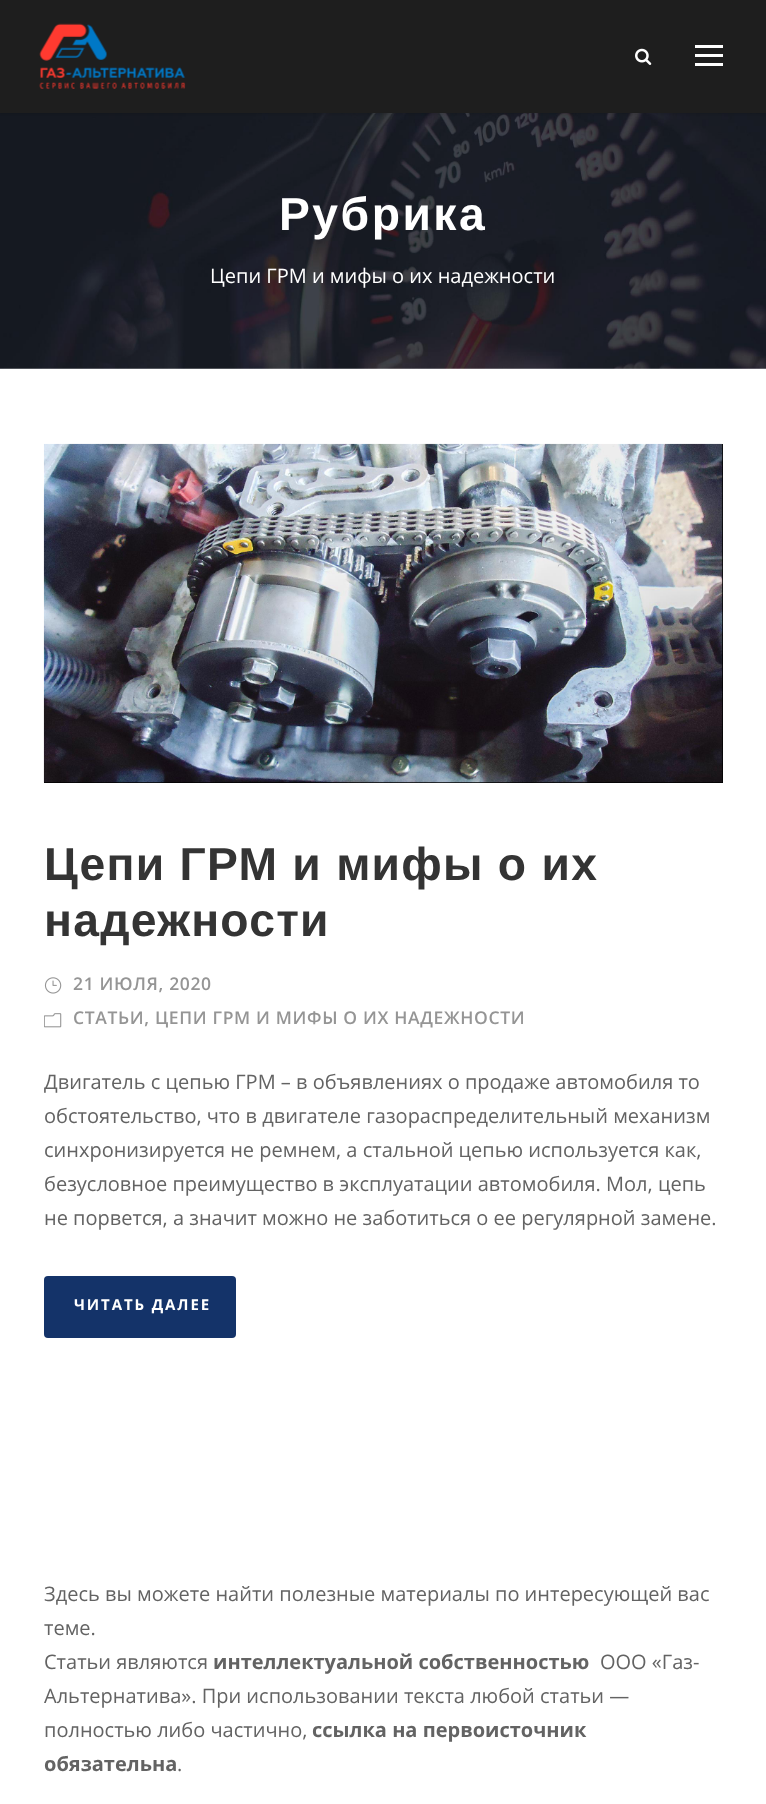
<svg xmlns="http://www.w3.org/2000/svg" width="766" height="1804" viewBox="0 0 766 1804">
  <rect width="100%" height="100%" fill="#fff"/>
  <image x="0" y="113" width="766" height="256" href="img/3.png"/>
  <path d="M0 1h766v113H0z" fill="#0000001a" filter="blur(1px)"/>
  <path d="M0 0h766v113H0z" fill="#1e1e1e"/>
  <image x="39" y="23" width="147" height="66" href="img/1.png"/>
  <image x="635" y="48" width="17" height="17" href="img/2.png"/>
  <path d="M695 45h28v3H695z" fill="#fff"/>
  <path d="M695 54h28v3H695z" fill="#fff"/>
  <path d="M695 63h28v3H695z" fill="#fff"/>
  <path d="M44 444h679v339H44z" fill="#000"/>
  <image x="43" y="443" width="680" height="340" href="img/4.png"/>
  <image x="44" y="977" width="18" height="17" href="img/5.png"/>
  <image x="44" y="1013" width="18" height="15" href="img/6.png"/>
  <rect x="44" y="1276" width="192" height="62" rx="4" fill="#143369"/>
  <text x="279" y="230" font-family="Liberation Sans" font-size="46.25" font-weight="bold" letter-spacing="2.5" fill="#fff">Рубрика</text>
  <text x="210" y="283" font-family="Open Sans" font-size="20" fill="#fff">Цепи ГРМ и мифы о их надежности</text>
  <g font-family="Liberation Sans" font-size="46.25" font-weight="bold" letter-spacing="1.25" fill="#343434">
    <text x="44" y="880">Цепи ГРМ и мифы о их</text>
    <text x="44" y="936">надежности</text>
  </g>
  <g font-family="Open Sans" font-size="17.5" font-weight="600" letter-spacing="0.65" fill="#959595">
    <text x="73" y="990">21 ИЮЛЯ, 2020</text>
    <text x="73" y="1024">СТАТЬИ, ЦЕПИ ГРМ И МИФЫ О ИХ НАДЕЖНОСТИ</text>
  </g>
  <g font-family="Open Sans" font-size="20" fill="#636363">
    <text x="44" y="1089">Двигатель с цепью ГРМ – в объявлениях о продаже автомобиля то</text>
    <text x="44" y="1123">обстоятельство, что в двигателе газораспределительный механизм</text>
    <text x="44" y="1157">синхронизируется не ремнем, а стальной цепью используется как,</text>
    <text x="44" y="1191">безусловное преимущество в эксплуатации автомобиля. Мол, цепь</text>
    <text x="44" y="1225">не порвется, а значит можно не заботиться о ее регулярной замене.</text>
  </g>
  <text x="74" y="1310" font-family="Open Sans" font-size="15" font-weight="bold" letter-spacing="1.9" fill="#fff">ЧИТАТЬ ДАЛЕЕ</text>
  <g font-family="Open Sans" font-size="20" fill="#636363">
    <text x="44" y="1601">Здесь вы можете найти полезные материалы по интересующей вас</text>
    <text x="44" y="1635">теме.</text>
    <text x="44" y="1669">Статьи являются</text>
  </g>
  <text x="213" y="1669" font-family="Open Sans" font-size="20" font-weight="bold" fill="#636363">интеллектуальной собственностью</text>
  <g font-family="Open Sans" font-size="20" fill="#636363">
    <text x="600" y="1669">ООО «Газ-</text>
    <text x="44" y="1703">Альтернатива». При использовании текста любой статьи —</text>
    <text x="44" y="1737">полностью либо частично,</text>
  </g>
  <g font-family="Open Sans" font-size="20" font-weight="bold" fill="#636363">
    <text x="312" y="1737">ссылка на первоисточник</text>
    <text x="44" y="1771">обязательна</text>
  </g>
  <text x="177" y="1771" font-family="Open Sans" font-size="20" fill="#636363">.</text>
</svg>
